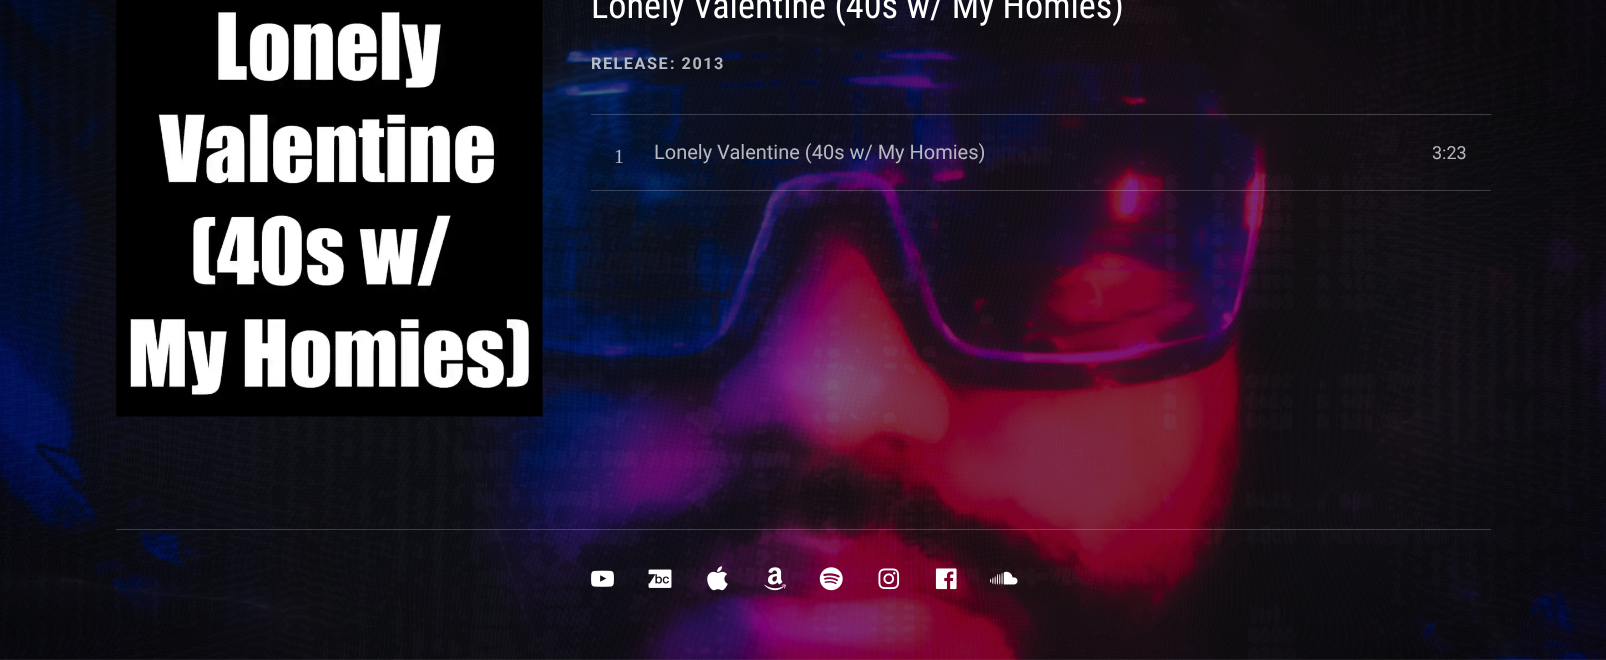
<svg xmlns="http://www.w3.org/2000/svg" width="1606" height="660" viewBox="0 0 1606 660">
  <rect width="100%" height="100%" fill="#fff"/>
  <image x="0" y="0" width="1606" height="660" href="img/1.png"/>
  <image x="116" y="0" width="427" height="417" href="img/2.png"/>
  <path d="M591 114h900v1H591z" fill="#ffffff33"/>
  <path d="M591 190h900v1H591z" fill="#ffffff33"/>
  <path d="M116 529h1375v1H116z" fill="#ffffff33"/>
  <image x="591" y="570" width="23" height="17" href="img/3.png"/>
  <image x="648" y="569" width="24" height="19" href="img/4.png"/>
  <image x="707" y="566" width="21" height="25" href="img/5.png"/>
  <image x="764" y="567" width="22" height="24" href="img/6.png"/>
  <image x="819" y="567" width="24" height="24" href="img/7.png"/>
  <image x="878" y="568" width="22" height="22" href="img/8.png"/>
  <image x="935" y="568" width="22" height="22" href="img/9.png"/>
  <image x="990" y="571" width="28" height="14" href="img/10.png"/>
  <text x="591" y="18" font-family="Roboto Condensed" font-size="36.25" fill="#fff">Lonely Valentine (40s w/ My Homies)</text>
  <text x="591" y="69" font-family="Roboto" font-size="16.25" font-weight="bold" letter-spacing="1.5" fill="#b8bcc7">RELEASE</text>
  <text x="670" y="69" font-family="Roboto" font-size="16.25" font-weight="bold" letter-spacing="1.5" fill="#b6b7bb">: 2013</text>
  <text x="614" y="163" font-family="Liberation Serif" font-size="20" fill="#b8bcc7">1</text>
  <text x="654" y="159" font-family="Roboto" font-size="20" fill="#b8b8c1">Lonely Valentine (40s w/ My Homies)</text>
  <text x="1432" y="159" font-family="Roboto" font-size="18" fill="#b6b7bb">3:23</text>
</svg>
